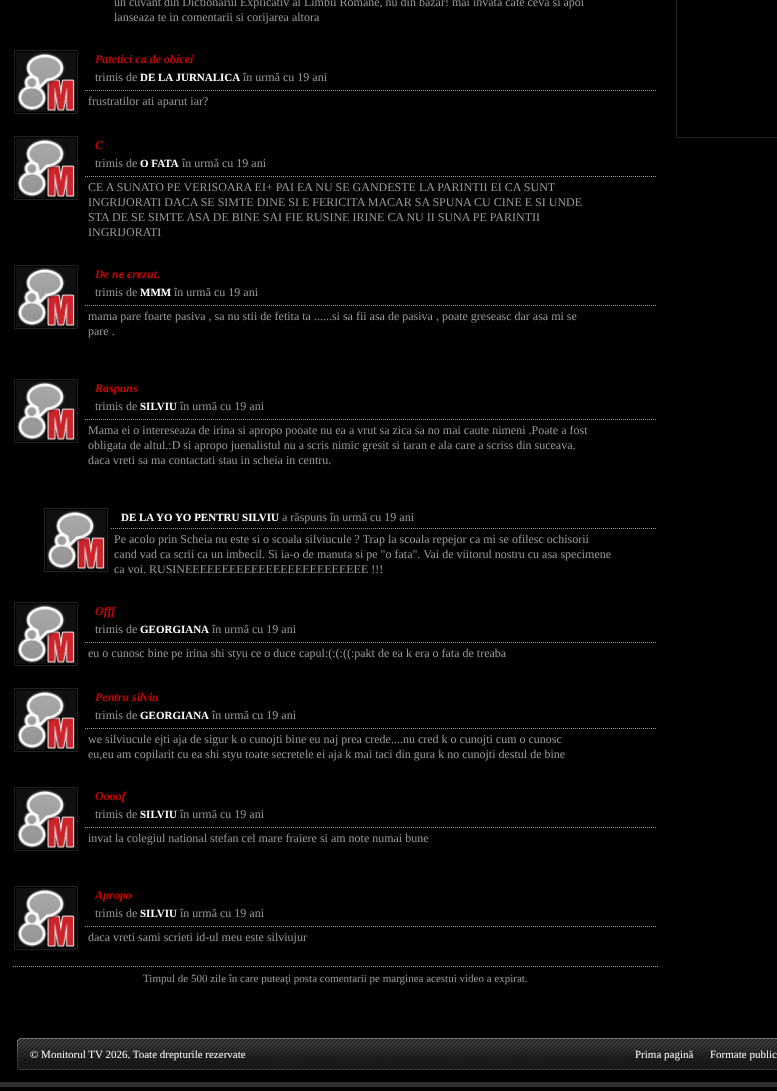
<svg xmlns="http://www.w3.org/2000/svg" width="777" height="1091" viewBox="0 0 777 1091">
  <rect width="100%" height="100%" fill="#000"/>
  <path d="M14.5 50.5h63v63H14.5z" fill="none" stroke="#222"/>
  <image x="16" y="52" width="60" height="60" href="img/1.png"/>
  <path d="M85 90.5H657" fill="none" stroke="#999" stroke-dasharray="1 1"/>
  <path d="M14.5 136.5h63v63H14.5z" fill="none" stroke="#222"/>
  <image x="16" y="138" width="60" height="60" href="img/1.png"/>
  <path d="M85 176.5H657" fill="none" stroke="#999" stroke-dasharray="1 1"/>
  <path d="M14.5 265.5h63v63H14.5z" fill="none" stroke="#222"/>
  <image x="16" y="267" width="60" height="60" href="img/1.png"/>
  <path d="M85 305.5H657" fill="none" stroke="#999" stroke-dasharray="1 1"/>
  <path d="M14.5 379.5h63v63H14.5z" fill="none" stroke="#222"/>
  <image x="16" y="381" width="60" height="60" href="img/1.png"/>
  <path d="M85 419.5H657" fill="none" stroke="#999" stroke-dasharray="1 1"/>
  <path d="M44.5 508.5h63v63H44.5z" fill="none" stroke="#222"/>
  <image x="46" y="510" width="60" height="60" href="img/1.png"/>
  <path d="M111 528.5H657" fill="none" stroke="#999" stroke-dasharray="1 1"/>
  <path d="M14.5 602.5h63v63H14.5z" fill="none" stroke="#222"/>
  <image x="16" y="604" width="60" height="60" href="img/1.png"/>
  <path d="M85 642.5H657" fill="none" stroke="#999" stroke-dasharray="1 1"/>
  <path d="M14.5 688.5h63v63H14.5z" fill="none" stroke="#222"/>
  <image x="16" y="690" width="60" height="60" href="img/1.png"/>
  <path d="M85 728.5H657" fill="none" stroke="#999" stroke-dasharray="1 1"/>
  <path d="M14.5 787.5h63v63H14.5z" fill="none" stroke="#222"/>
  <image x="16" y="789" width="60" height="60" href="img/1.png"/>
  <path d="M85 827.5H657" fill="none" stroke="#999" stroke-dasharray="1 1"/>
  <path d="M14.5 886.5h63v63H14.5z" fill="none" stroke="#222"/>
  <image x="16" y="888" width="60" height="60" href="img/2.png"/>
  <path d="M85 926.5H657" fill="none" stroke="#999" stroke-dasharray="1 1"/>
  <path d="M13 966.5H658" fill="none" stroke="#999" stroke-dasharray="1 1"/>
  <path d="M676.5 -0.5h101v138H676.5z" fill="none" stroke="#222"/>
  <image x="17" y="1038" width="760" height="32" href="img/3.png"/>
  <path d="M0 1082h777v5H0z" fill="#2f2f2f"/>
  <g font-family="Liberation Serif" font-size="12" fill="#999">
    <text x="114" y="6">un cuvant din Dictionarul Explicativ al Limbii Romane, nu din bazar! mai invata cate ceva si apoi</text>
    <text x="114" y="21">lanseaza te in comentarii si corijarea altora</text>
  </g>
  <text x="95" y="63" font-family="Liberation Serif" font-size="12" font-weight="bold" font-style="italic" fill="#ca0000">Patetici ca de obicei</text>
  <text x="95" y="81" font-family="Liberation Serif" font-size="12" fill="#999">trimis de</text>
  <text x="140" y="81" font-family="Liberation Serif" font-size="11" font-weight="bold" fill="#fff">DE LA JURNALICA</text>
  <g font-family="Liberation Serif" font-size="12" fill="#999">
    <text x="243" y="81">în urmă cu 19 ani</text>
    <text x="88" y="105">frustratilor ati aparut iar?</text>
  </g>
  <text x="95" y="149" font-family="Liberation Serif" font-size="12" font-weight="bold" font-style="italic" fill="#ca0000">C</text>
  <text x="95" y="167" font-family="Liberation Serif" font-size="12" fill="#999">trimis de</text>
  <text x="140" y="167" font-family="Liberation Serif" font-size="11" font-weight="bold" fill="#fff">O FATA</text>
  <g font-family="Liberation Serif" font-size="12" fill="#999">
    <text x="182" y="167">în urmă cu 19 ani</text>
    <text x="88" y="191">CE A SUNATO PE VERISOARA EI+ PAI EA NU SE GANDESTE LA PARINTII EI CA SUNT</text>
    <text x="88" y="206">INGRIJORATI DACA SE SIMTE DINE SI E FERICITA MACAR SA SPUNA CU CINE E SI UNDE</text>
    <text x="88" y="221">STA DE SE SIMTE ASA DE BINE SAI FIE RUSINE IRINE CA NU II SUNA PE PARINTII</text>
    <text x="88" y="236">INGRIJORATI</text>
  </g>
  <text x="95" y="278" font-family="Liberation Serif" font-size="12" font-weight="bold" font-style="italic" fill="#ca0000">De ne crezut.</text>
  <text x="95" y="296" font-family="Liberation Serif" font-size="12" fill="#999">trimis de</text>
  <text x="140" y="296" font-family="Liberation Serif" font-size="11" font-weight="bold" fill="#fff">MMM</text>
  <g font-family="Liberation Serif" font-size="12" fill="#999">
    <text x="174" y="296">în urmă cu 19 ani</text>
    <text x="88" y="320">mama pare foarte pasiva , sa nu stii de fetita ta ......si sa fii asa de pasiva , poate greseasc dar asa mi se</text>
    <text x="88" y="335">pare .</text>
  </g>
  <text x="95" y="392" font-family="Liberation Serif" font-size="12" font-weight="bold" font-style="italic" fill="#ca0000">Raspuns</text>
  <text x="95" y="410" font-family="Liberation Serif" font-size="12" fill="#999">trimis de</text>
  <text x="140" y="410" font-family="Liberation Serif" font-size="11" font-weight="bold" fill="#fff">SILVIU</text>
  <g font-family="Liberation Serif" font-size="12" fill="#999">
    <text x="180" y="410">în urmă cu 19 ani</text>
    <text x="88" y="434">Mama ei o intereseaza de irina si apropo pooate nu ea a vrut sa zica sa no mai caute nimeni .Poate a fost</text>
    <text x="88" y="449">obligata de altul.:D si apropo juenalistul nu a scris nimic gresit si taran e ala care a scriss din suceava.</text>
    <text x="88" y="464">daca vreti sa ma contactati stau in scheia in centru.</text>
  </g>
  <text x="121" y="521" font-family="Liberation Serif" font-size="11" font-weight="bold" fill="#fff">DE LA YO YO PENTRU SILVIU</text>
  <g font-family="Liberation Serif" font-size="12" fill="#999">
    <text x="282" y="521">a răspuns în urmă cu 19 ani</text>
    <text x="114" y="543">Pe acolo prin Scheia nu este si o scoala silviucule ? Trap la scoala repejor ca mi se ofilesc ochisorii</text>
    <text x="114" y="558">cand vad ca scrii ca un imbecil. Si ia-o de manuta si pe "o fata". Vai de viitorul nostru cu asa specimene</text>
    <text x="114" y="573">ca voi. RUSINEEEEEEEEEEEEEEEEEEEEEEEEE !!!</text>
  </g>
  <text x="95" y="615" font-family="Liberation Serif" font-size="12" font-weight="bold" font-style="italic" fill="#ca0000">Offf</text>
  <text x="95" y="633" font-family="Liberation Serif" font-size="12" fill="#999">trimis de</text>
  <text x="140" y="633" font-family="Liberation Serif" font-size="11" font-weight="bold" fill="#fff">GEORGIANA</text>
  <g font-family="Liberation Serif" font-size="12" fill="#999">
    <text x="212" y="633">în urmă cu 19 ani</text>
    <text x="88" y="657">eu o cunosc bine pe irina shi styu ce o duce capul:(:(:((:pakt de ea k era o fata de treaba</text>
  </g>
  <text x="95" y="701" font-family="Liberation Serif" font-size="12" font-weight="bold" font-style="italic" fill="#ca0000">Pentru silviu</text>
  <text x="95" y="719" font-family="Liberation Serif" font-size="12" fill="#999">trimis de</text>
  <text x="140" y="719" font-family="Liberation Serif" font-size="11" font-weight="bold" fill="#fff">GEORGIANA</text>
  <g font-family="Liberation Serif" font-size="12" fill="#999">
    <text x="212" y="719">în urmă cu 19 ani</text>
    <text x="88" y="743">we silviucule ejti aja de sigur k o cunojti bine eu naj prea crede....nu cred k o cunojti cum o cunosc</text>
    <text x="88" y="758">eu,eu am copilarit cu ea shi styu toate secretele ei aja k mai taci din gura k no cunojti destul de bine</text>
  </g>
  <text x="95" y="800" font-family="Liberation Serif" font-size="12" font-weight="bold" font-style="italic" fill="#ca0000">Oooof</text>
  <text x="95" y="818" font-family="Liberation Serif" font-size="12" fill="#999">trimis de</text>
  <text x="140" y="818" font-family="Liberation Serif" font-size="11" font-weight="bold" fill="#fff">SILVIU</text>
  <g font-family="Liberation Serif" font-size="12" fill="#999">
    <text x="180" y="818">în urmă cu 19 ani</text>
    <text x="88" y="842">invat la colegiul national stefan cel mare fraiere si am note numai bune</text>
  </g>
  <text x="95" y="899" font-family="Liberation Serif" font-size="12" font-weight="bold" font-style="italic" fill="#ca0000">Apropo</text>
  <text x="95" y="917" font-family="Liberation Serif" font-size="12" fill="#999">trimis de</text>
  <text x="140" y="917" font-family="Liberation Serif" font-size="11" font-weight="bold" fill="#fff">SILVIU</text>
  <g font-family="Liberation Serif" font-size="12" fill="#999">
    <text x="180" y="917">în urmă cu 19 ani</text>
    <text x="88" y="941">daca vreti sami scrieti id-ul meu este silviujur</text>
  </g>
  <text x="143" y="982" font-family="Liberation Serif" font-size="11" fill="#999">Timpul de 500 zile în care puteaţi posta comentarii pe marginea acestui video a expirat.</text>
  <g font-family="Liberation Serif" font-size="11" fill="#fff">
    <text x="30" y="1058">© Monitorul TV 2026. Toate drepturile rezervate</text>
    <text x="635" y="1058">Prima pagină</text>
    <text x="710" y="1058">Formate public</text>
  </g>
</svg>
